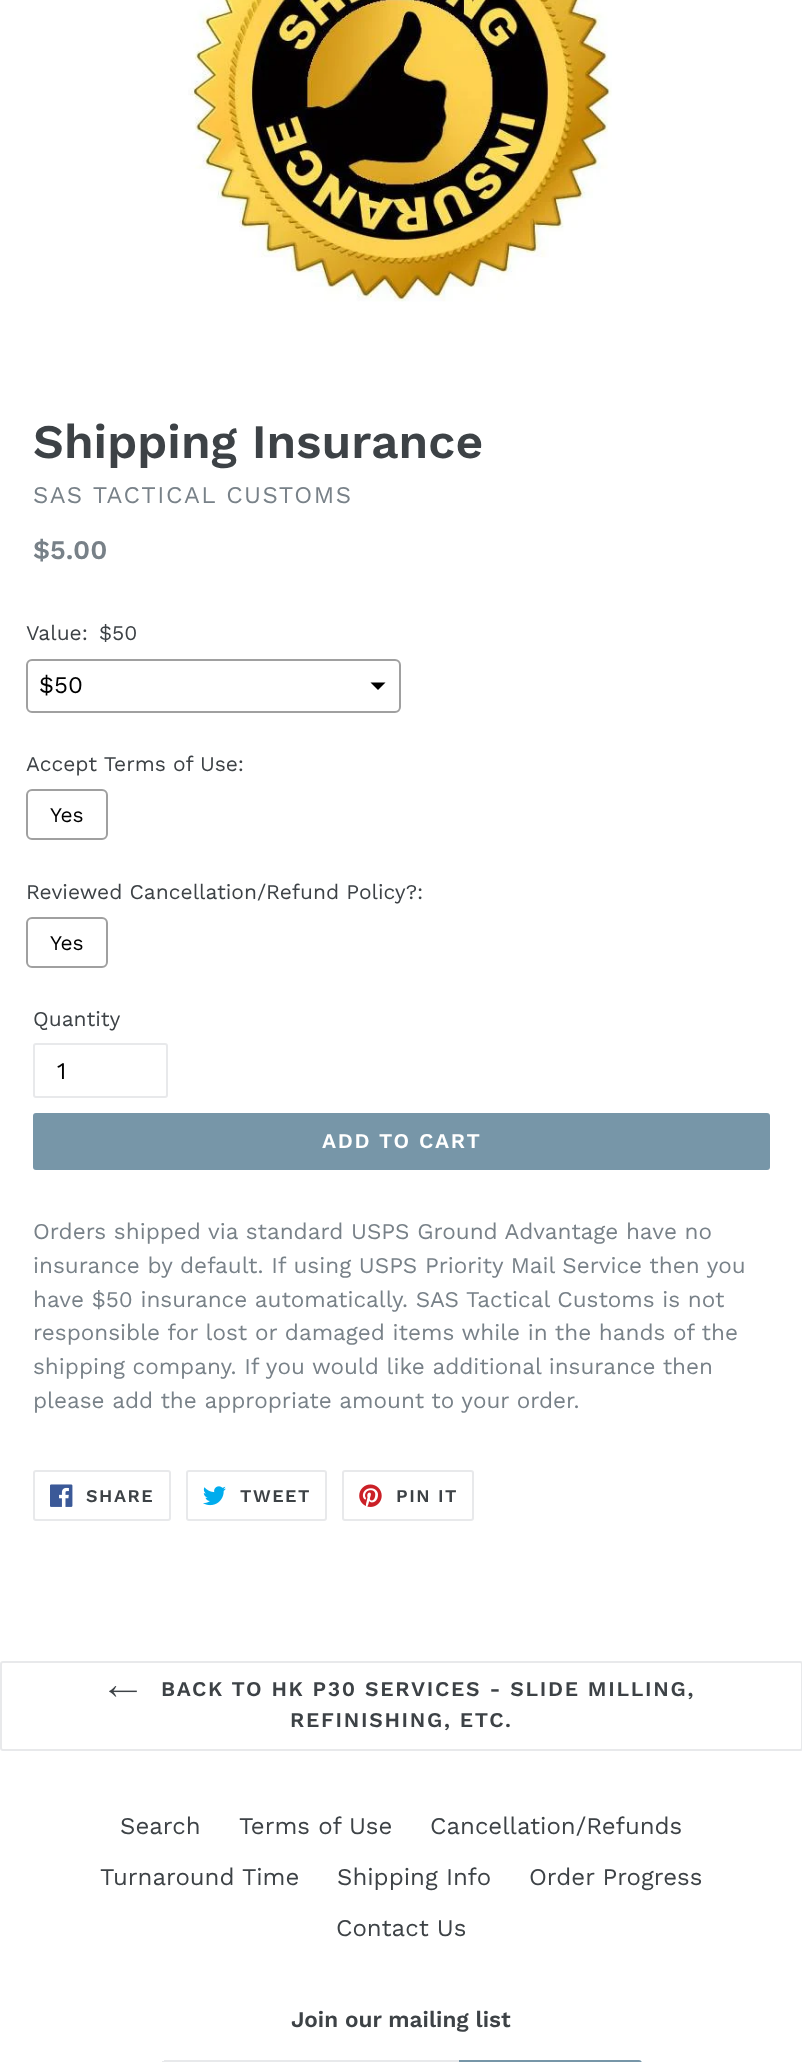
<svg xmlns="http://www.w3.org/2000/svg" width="802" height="2062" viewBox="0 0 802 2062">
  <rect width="100%" height="100%" fill="#fff"/>
  <image x="188" y="0" width="424" height="302" href="img/1.png"/>
  <path d="M370.5 682.5L378 690L385.5 682.5Z" fill="#000"/>
  <rect x="27" y="660" width="373" height="52" rx="5" fill="none" stroke="#a0a0a0" stroke-width="2"/>
  <rect x="27" y="790" width="80" height="49" rx="5" fill="none" stroke="#a0a0a0" stroke-width="2"/>
  <rect x="27" y="918" width="80" height="49" rx="5" fill="none" stroke="#a0a0a0" stroke-width="2"/>
  <rect x="34" y="1044" width="133" height="53" rx="2" fill="none" stroke="#e8e9eb" stroke-width="2"/>
  <rect x="33" y="1113" width="737" height="57" rx="3" fill="#7796a8"/>
  <rect x="34" y="1471" width="136" height="49" rx="2" fill="none" stroke="#e8e9eb" stroke-width="2"/>
  <image x="50" y="1484" width="23" height="23" href="img/2.png"/>
  <rect x="187" y="1471" width="139" height="49" rx="2" fill="none" stroke="#e8e9eb" stroke-width="2"/>
  <image x="203" y="1486" width="23" height="20" href="img/3.png"/>
  <rect x="343" y="1471" width="130" height="49" rx="2" fill="none" stroke="#e8e9eb" stroke-width="2"/>
  <image x="359" y="1484" width="23" height="23" href="img/4.png"/>
  <rect x="1" y="1662" width="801" height="88" rx="2" fill="none" stroke="#e8e9eb" stroke-width="2"/>
  <image x="109" y="1686" width="28" height="11" href="img/5.png"/>
  <path d="M164 2060h295v2H164z" fill="#e8e9eb"/>
  <path d="M162 2061h2v1H162z" fill="#e8e9eb"/>
  <path d="M459 2060H639C640.5 2060 642 2061.5 642 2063V2062C642 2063.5 640.5 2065 639 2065H459Z" fill="#7796a8"/>
  <text x="33" y="458" font-family="Work Sans" font-size="48" font-weight="600" fill="#3d4246">Shipping Insurance</text>
  <text x="33" y="503" font-family="Work Sans" font-size="24" letter-spacing="1.5" fill="#788188">SAS TACTICAL CUSTOMS</text>
  <text x="33" y="559" font-family="Work Sans" font-size="27" font-weight="600" fill="#788188">$5.00</text>
  <g font-family="Work Sans" font-size="21" fill="#3d4246">
    <text x="26" y="640">Value:</text>
    <text x="99" y="640">$50</text>
  </g>
  <text x="39" y="693" font-family="Work Sans" font-size="24" fill="#000">$50</text>
  <text x="26" y="771" font-family="Work Sans" font-size="21" fill="#3d4246">Accept Terms of Use:</text>
  <text x="50" y="822" font-family="Work Sans" font-size="21" fill="#000">Yes</text>
  <text x="26" y="899" font-family="Work Sans" font-size="21" fill="#3d4246">Reviewed Cancellation/Refund Policy?:</text>
  <text x="50" y="950" font-family="Work Sans" font-size="21" fill="#000">Yes</text>
  <text x="33" y="1026" font-family="Work Sans" font-size="21" fill="#3d4246">Quantity</text>
  <text x="57" y="1079" font-family="Work Sans" font-size="24" fill="#000">1</text>
  <text x="322" y="1148" font-family="Work Sans" font-size="21" font-weight="600" letter-spacing="1.7" fill="#fff">ADD TO CART</text>
  <g font-family="Work Sans" font-size="22.5" fill="#788188">
    <text x="33" y="1239">Orders shipped via standard USPS Ground Advantage have no</text>
    <text x="33" y="1273">insurance by default. If using USPS Priority Mail Service then you</text>
    <text x="33" y="1307">have $50 insurance automatically. SAS Tactical Customs is not</text>
    <text x="33" y="1340">responsible for lost or damaged items while in the hands of the</text>
    <text x="33" y="1374">shipping company. If you would like additional insurance then</text>
    <text x="33" y="1408">please add the appropriate amount to your order.</text>
  </g>
  <g font-family="Work Sans" font-size="18" font-weight="600" letter-spacing="1.5" fill="#3d4246">
    <text x="86" y="1502">SHARE</text>
    <text x="240" y="1502">TWEET</text>
    <text x="396" y="1502">PIN IT</text>
  </g>
  <g font-family="Work Sans" font-size="21" font-weight="600" letter-spacing="1.7" fill="#3d4246">
    <text x="161" y="1696">BACK TO HK P30 SERVICES - SLIDE MILLING,</text>
    <text x="290" y="1727">REFINISHING, ETC.</text>
  </g>
  <g font-family="Work Sans" font-size="24" fill="#3d4246">
    <text x="120" y="1834">Search</text>
    <text x="239" y="1834">Terms of Use</text>
    <text x="430" y="1834">Cancellation/Refunds</text>
    <text x="100" y="1885">Turnaround Time</text>
    <text x="337" y="1885">Shipping Info</text>
    <text x="529" y="1885">Order Progress</text>
    <text x="336" y="1936">Contact Us</text>
  </g>
  <text x="291" y="2027" font-family="Work Sans" font-size="22.5" font-weight="600" fill="#3d4246">Join our mailing list</text>
</svg>
